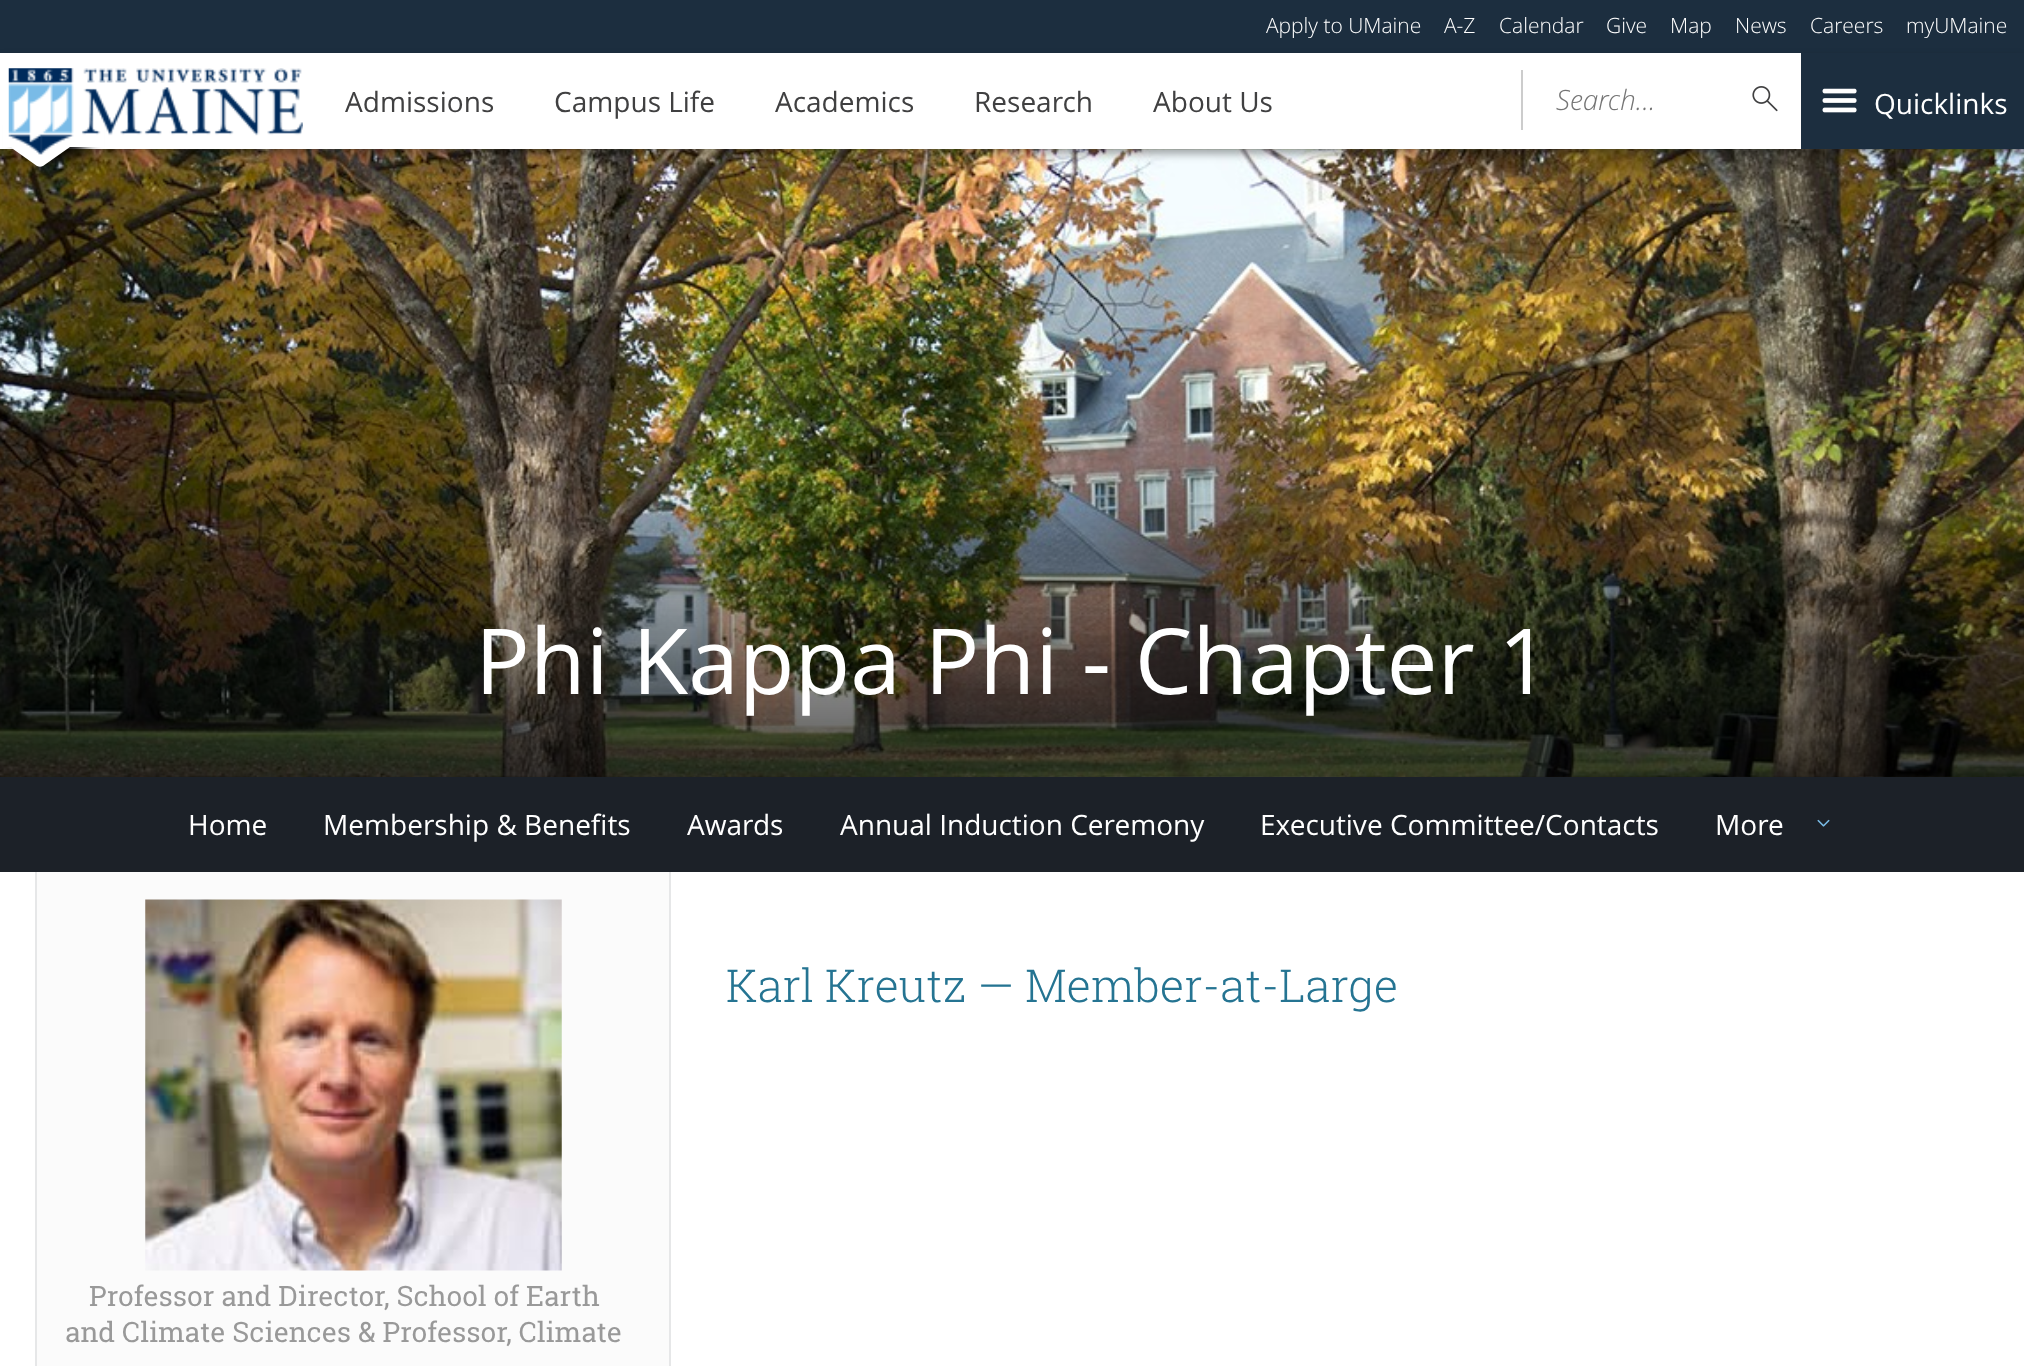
<svg xmlns="http://www.w3.org/2000/svg" width="2024" height="1366" viewBox="0 0 2024 1366">
  <rect width="100%" height="100%" fill="#fff"/>
  <path d="M0 0h2024v53H0z" fill="#1c2e3f"/>
  <image x="0" y="149" width="2024" height="628" href="img/4.png"/>
  <path d="M0 58h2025v96H0z" fill="#00000059" filter="blur(4.5px)"/>
  <path d="M0 53h1801v96H0z" fill="#fff"/>
  <rect x="23" y="123" width="61" height="35" rx="4" fill="#000" filter="blur(8.5px)"/>
  <path d="M12 145L57 114C58 113 61 113 63 114L87 131C89 132 89 134 87 135L43 166C41 167 39 167 37 166L13 149C11 148 11 146 12 145Z" fill="#fff"/>
  <path d="M3 103h101v44H3z" fill="#fff"/>
  <image x="8" y="68" width="295" height="87" href="img/1.png"/>
  <path d="M1521 70h2v60H1521z" fill="#ccc"/>
  <image x="1752" y="86" width="26" height="26" href="img/2.png"/>
  <path d="M1801 53h223v96H1801z" fill="#1c2e3f"/>
  <image x="1822" y="88" width="35" height="25" href="img/3.png"/>
  <path d="M0 777h2024v95H0z" fill="#1c2128"/>
  <image x="1817" y="819" width="13" height="8" href="img/5.png"/>
  <path d="M37 872h632v494H37z" fill="#fbfbfb"/>
  <path d="M669 872h2v494H669z" fill="#e6e7e8"/>
  <path d="M35 872h2v494H35z" fill="#e6e7e8"/>
  <image x="145" y="899" width="417" height="372" href="img/6.png"/>
  <g font-family="Open Sans" font-size="21" font-weight="300" fill="#fff">
    <text x="1266" y="33">Apply to UMaine</text>
    <text x="1444" y="33">A-Z</text>
    <text x="1499" y="33">Calendar</text>
    <text x="1606" y="33">Give</text>
    <text x="1670" y="33">Map</text>
    <text x="1735" y="33">News</text>
    <text x="1810" y="33">Careers</text>
    <text x="1906" y="33">myUMaine</text>
  </g>
  <g font-family="Open Sans" font-size="28" fill="#404041">
    <text x="345" y="112">Admissions</text>
    <text x="554" y="112">Campus Life</text>
    <text x="775" y="112">Academics</text>
    <text x="974" y="112">Research</text>
    <text x="1153" y="112">About Us</text>
  </g>
  <text x="1556" y="110" font-family="Open Sans" font-size="28" font-weight="300" font-style="italic" fill="#757575">Search...</text>
  <text x="1874" y="114" font-family="Open Sans" font-size="28" fill="#fff">Quicklinks</text>
  <text x="475" y="694" font-family="Open Sans" font-size="91" fill="#fff">Phi Kappa Phi - Chapter 1</text>
  <g font-family="Open Sans" font-size="28" fill="#fff">
    <text x="188" y="835">Home</text>
    <text x="323" y="835">Membership &amp; Benefits</text>
    <text x="687" y="835">Awards</text>
    <text x="840" y="835">Annual Induction Ceremony</text>
    <text x="1260" y="835">Executive Committee/Contacts</text>
    <text x="1715" y="835">More</text>
  </g>
  <text x="726" y="1002" font-family="Roboto Slab" font-size="45.5" font-weight="300" fill="#257492">Karl Kreutz — Member-at-Large</text>
  <g font-family="Roboto Slab" font-size="28" fill="#999">
    <text x="89" y="1306">Professor and Director, School of Earth</text>
    <text x="65" y="1342">and Climate Sciences &amp; Professor, Climate</text>
  </g>
</svg>
